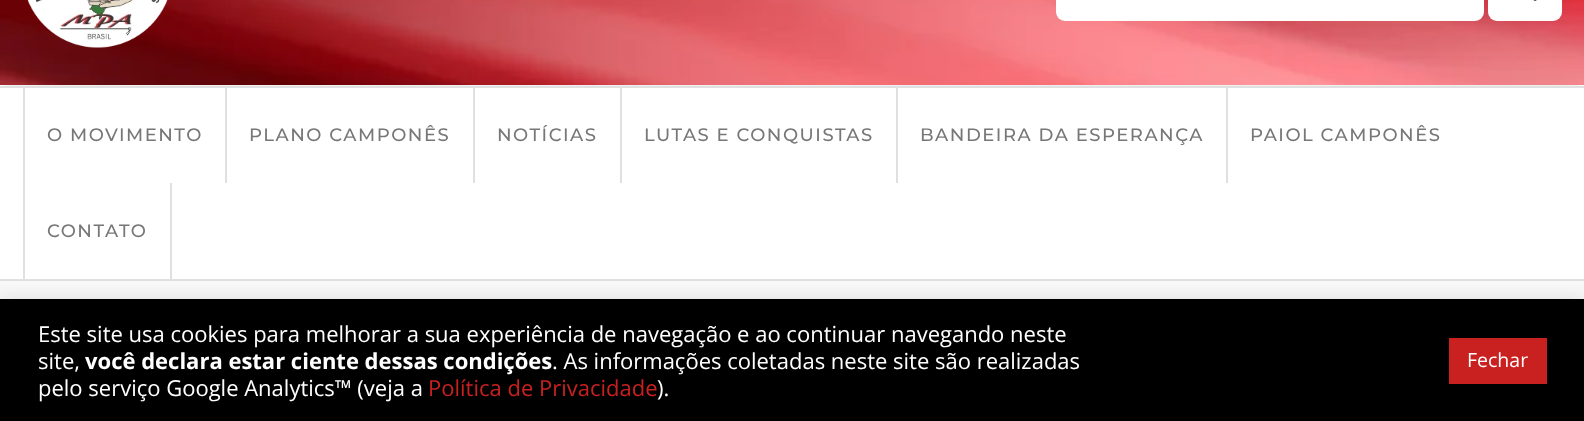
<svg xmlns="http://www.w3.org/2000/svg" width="1584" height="421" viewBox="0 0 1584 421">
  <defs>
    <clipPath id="clip1"><path d="M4 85h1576v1H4z"/></clipPath>
  </defs>
  <rect width="100%" height="100%" fill="#fff"/>
  <g clip-path="url(#clip1)">
    <path d="M0 89h1584v195H0z" fill="#0000002e" filter="blur(7.5px)"/>
  </g>
  <image x="0" y="0" width="1584" height="85" href="img/1.png"/>
  <image x="27" y="0" width="141" height="48" href="img/2.png"/>
  <rect x="1056" y="-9" width="428" height="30" rx="9" fill="#fff"/>
  <rect x="1488" y="-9" width="74" height="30" rx="9" fill="#fff"/>
  <image x="1533" y="0" width="4" height="1" href="img/3.png"/>
  <path d="M0 86h1584v2H0z" fill="#e0e0e0"/>
  <path d="M0 279h1584v2H0z" fill="#e0e0e0"/>
  <path d="M23 87h2v192H23z" fill="#e0e0e0"/>
  <path d="M225 87h2v96H225z" fill="#e0e0e0"/>
  <path d="M473 87h2v96H473z" fill="#e0e0e0"/>
  <path d="M620 87h2v96H620z" fill="#e0e0e0"/>
  <path d="M896 87h2v96H896z" fill="#e0e0e0"/>
  <path d="M1226 87h2v96H1226z" fill="#e0e0e0"/>
  <path d="M170 183h2v96H170z" fill="#e0e0e0"/>
  <path d="M0 281h1584v18H0z" fill="#f8f8f8"/>
  <path d="M0 297h1584v123H0z" fill="#acabab4d" filter="blur(7.5px)"/>
  <path d="M0 299h1584v122H0z" fill="#000"/>
  <path d="M1449 338h98v46H1449z" fill="#c92020"/>
  <g font-family="Montserrat" font-size="18" font-weight="500" letter-spacing="1.5" fill="#777">
    <text x="47" y="141">O MOVIMENTO</text>
    <text x="249" y="141">PLANO CAMPONÊS</text>
    <text x="497" y="141">NOTÍCIAS</text>
    <text x="644" y="141">LUTAS E CONQUISTAS</text>
    <text x="920" y="141">BANDEIRA DA ESPERANÇA</text>
    <text x="1250" y="141">PAIOL CAMPONÊS</text>
    <text x="47" y="237">CONTATO</text>
  </g>
  <g font-family="Open Sans" font-size="22" fill="#fff">
    <text x="38" y="342">Este site usa cookies para melhorar a sua experiência de navegação e ao continuar navegando neste</text>
    <text x="38" y="369">site,</text>
  </g>
  <text x="85" y="369" font-family="Open Sans" font-size="22" font-weight="bold" fill="#fff">você declara estar ciente dessas condições</text>
  <g font-family="Open Sans" font-size="22" fill="#fff">
    <text x="552" y="369">. As informações coletadas neste site são realizadas</text>
    <text x="38" y="396">pelo serviço Google Analytics™ (veja a</text>
  </g>
  <text x="428" y="396" font-family="Open Sans" font-size="22" fill="#c92020">Política de Privacidade</text>
  <text x="657" y="396" font-family="Open Sans" font-size="22" fill="#fff">).</text>
  <text x="1467" y="367" font-family="Open Sans" font-size="19.5" fill="#fff">Fechar</text>
</svg>
